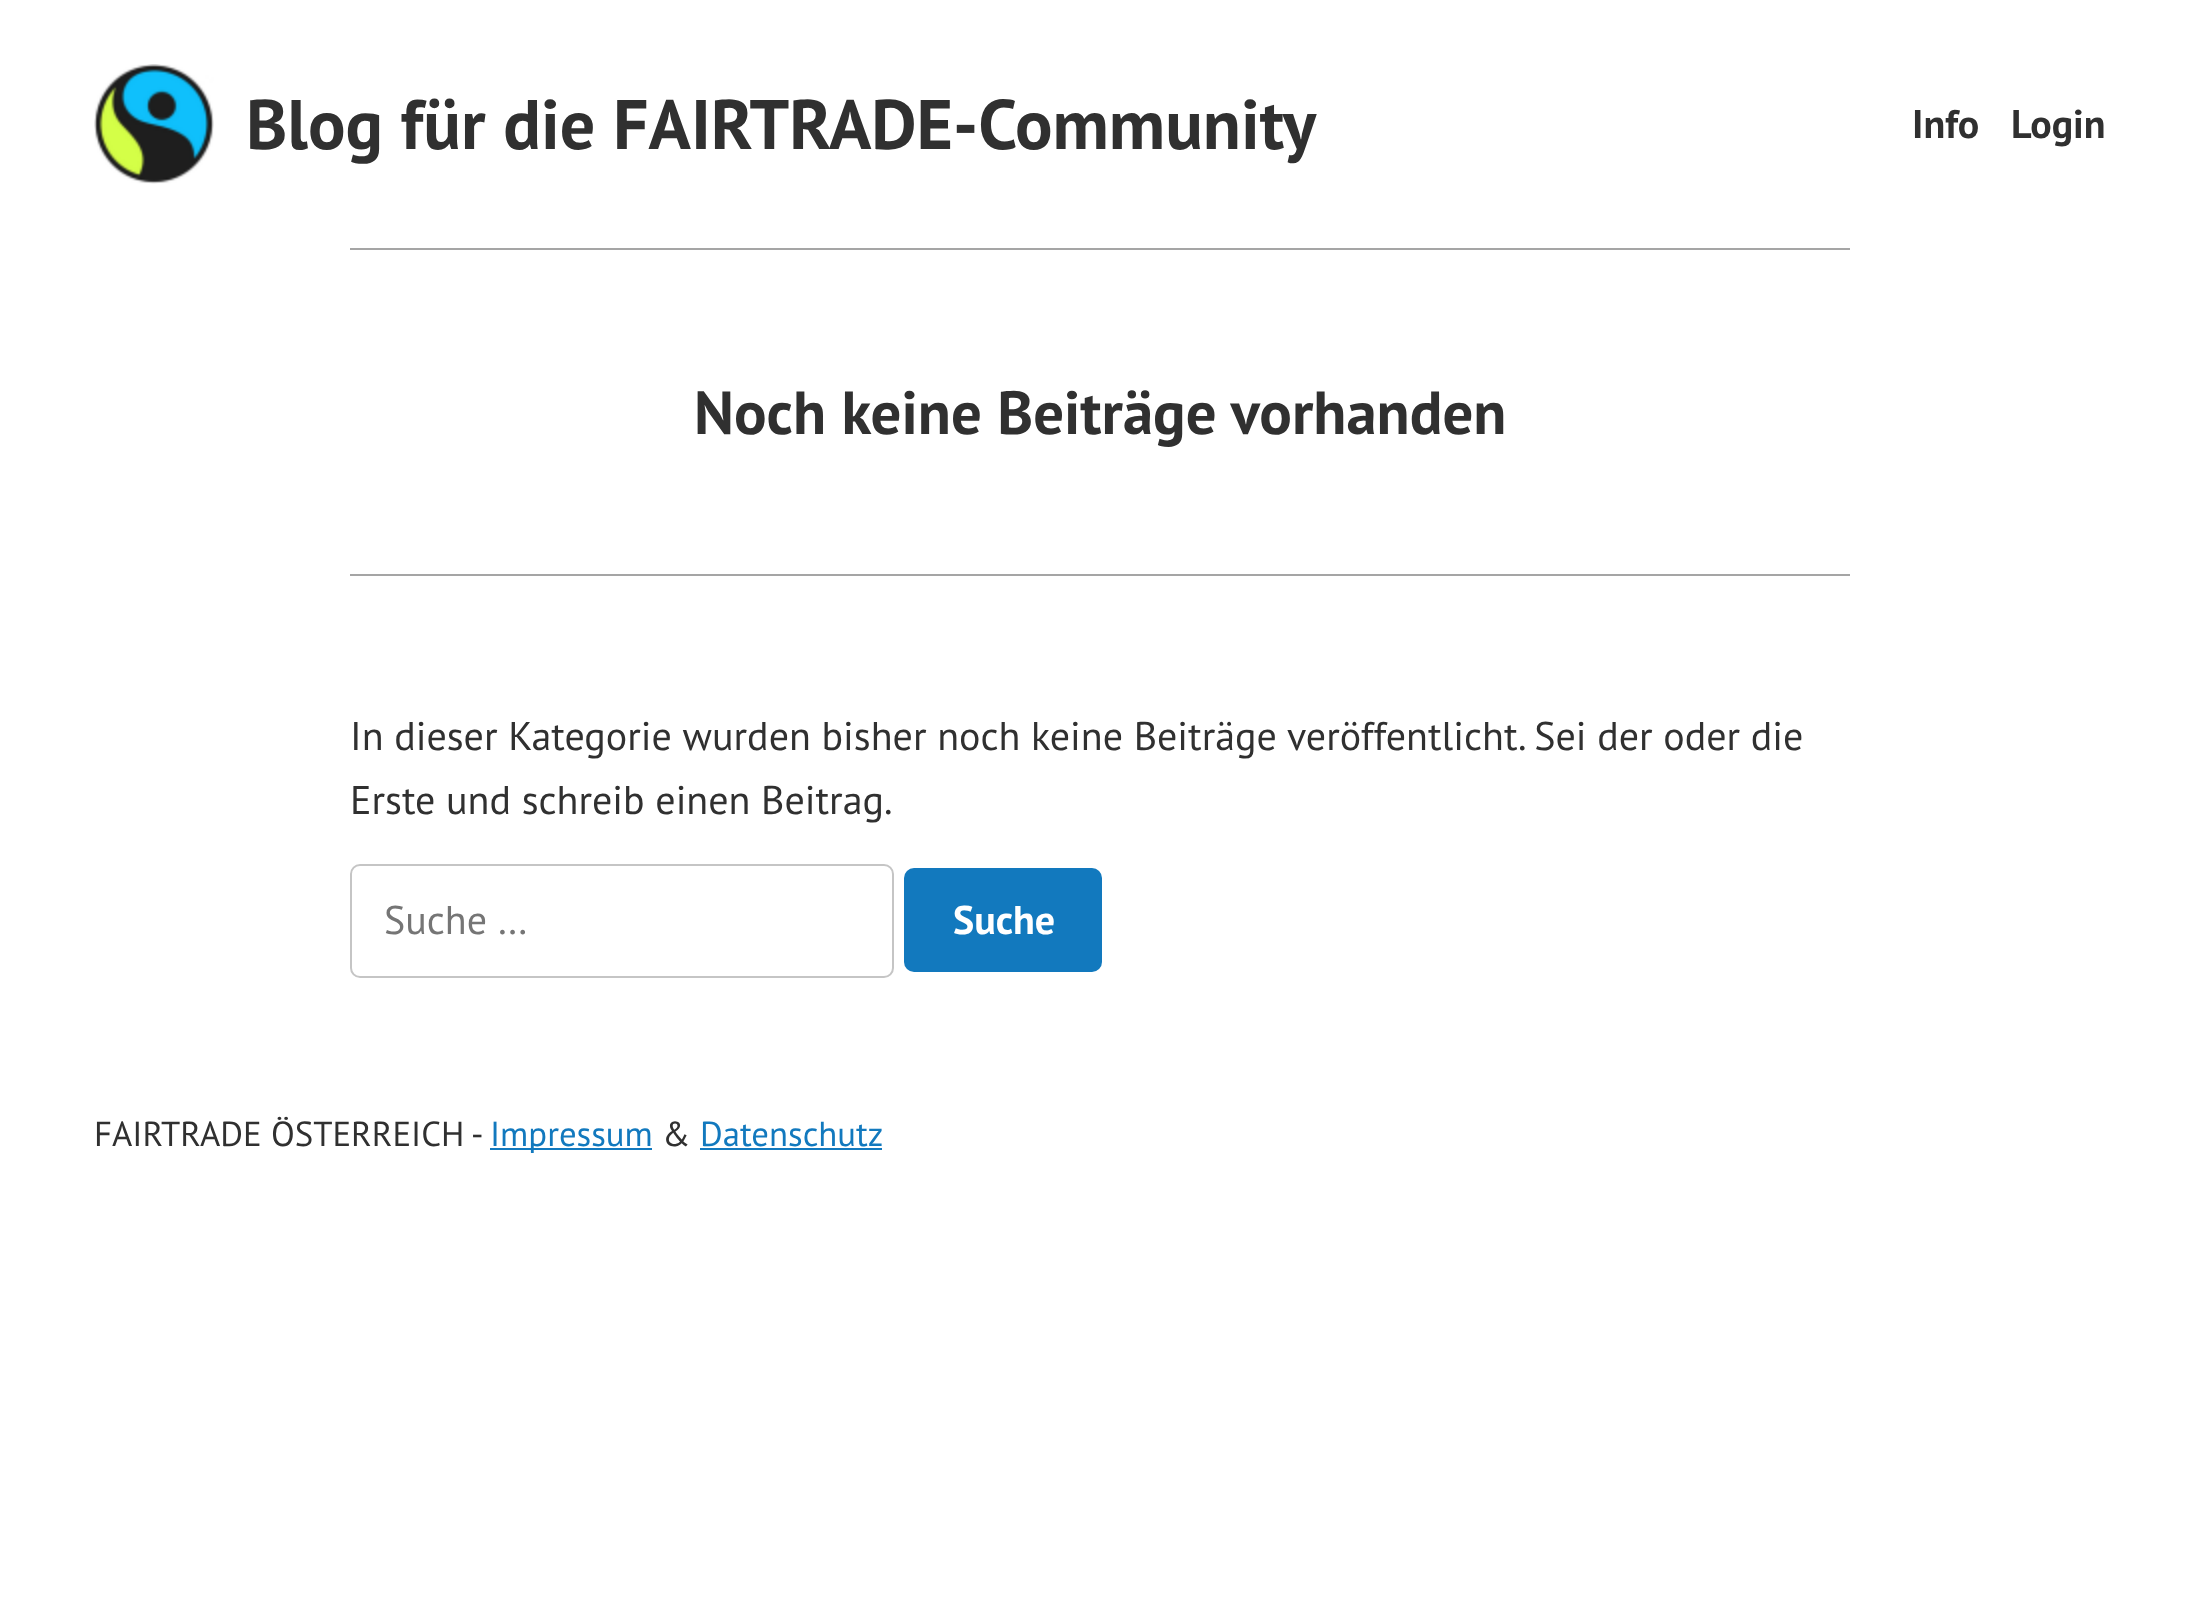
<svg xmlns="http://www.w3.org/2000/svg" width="2200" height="1619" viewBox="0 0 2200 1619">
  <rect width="100%" height="100%" fill="#fff"/>
  <image x="94" y="64" width="120" height="120" href="img/1.png"/>
  <path d="M350 248h1500v2H350z" fill="#a5a5a5"/>
  <path d="M350 574h1500v2H350z" fill="#a5a5a5"/>
  <rect x="351" y="865" width="542" height="112" rx="9" fill="none" stroke="#c5c5c5" stroke-width="2"/>
  <rect x="904" y="868" width="198" height="104" rx="10" fill="#1279be"/>
  <path d="M490 1148h162v2H490z" fill="#1279be"/>
  <path d="M700 1148h182v2H700z" fill="#1279be"/>
  <text x="246" y="149" font-family="PT Sans" font-size="70" font-weight="bold" fill="#303030">Blog für die FAIRTRADE-Community</text>
  <g font-family="PT Sans" font-size="40" font-weight="bold" fill="#303030">
    <text x="1912" y="138">Info</text>
    <text x="2011" y="138">Login</text>
  </g>
  <text x="694" y="434" font-family="PT Sans" font-size="60.8" font-weight="bold" fill="#303030">Noch keine Beiträge vorhanden</text>
  <g font-family="PT Sans" font-size="40" fill="#303030">
    <text x="350" y="750">In dieser Kategorie wurden bisher noch keine Beiträge veröffentlicht. Sei der oder die</text>
    <text x="350" y="814">Erste und schreib einen Beitrag.</text>
  </g>
  <text x="384" y="934" font-family="PT Sans" font-size="40" fill="#757575">Suche …</text>
  <text x="953" y="934" font-family="PT Sans" font-size="40" font-weight="bold" fill="#fff">Suche</text>
  <text x="94" y="1146" font-family="PT Sans" font-size="34.75" fill="#303030">FAIRTRADE ÖSTERREICH -</text>
  <text x="490" y="1146" font-family="PT Sans" font-size="34.75" fill="#1279be">Impressum</text>
  <text x="662" y="1146" font-family="PT Sans" font-size="34.75" fill="#303030">&amp;</text>
  <text x="700" y="1146" font-family="PT Sans" font-size="34.75" fill="#1279be">Datenschutz</text>
</svg>
